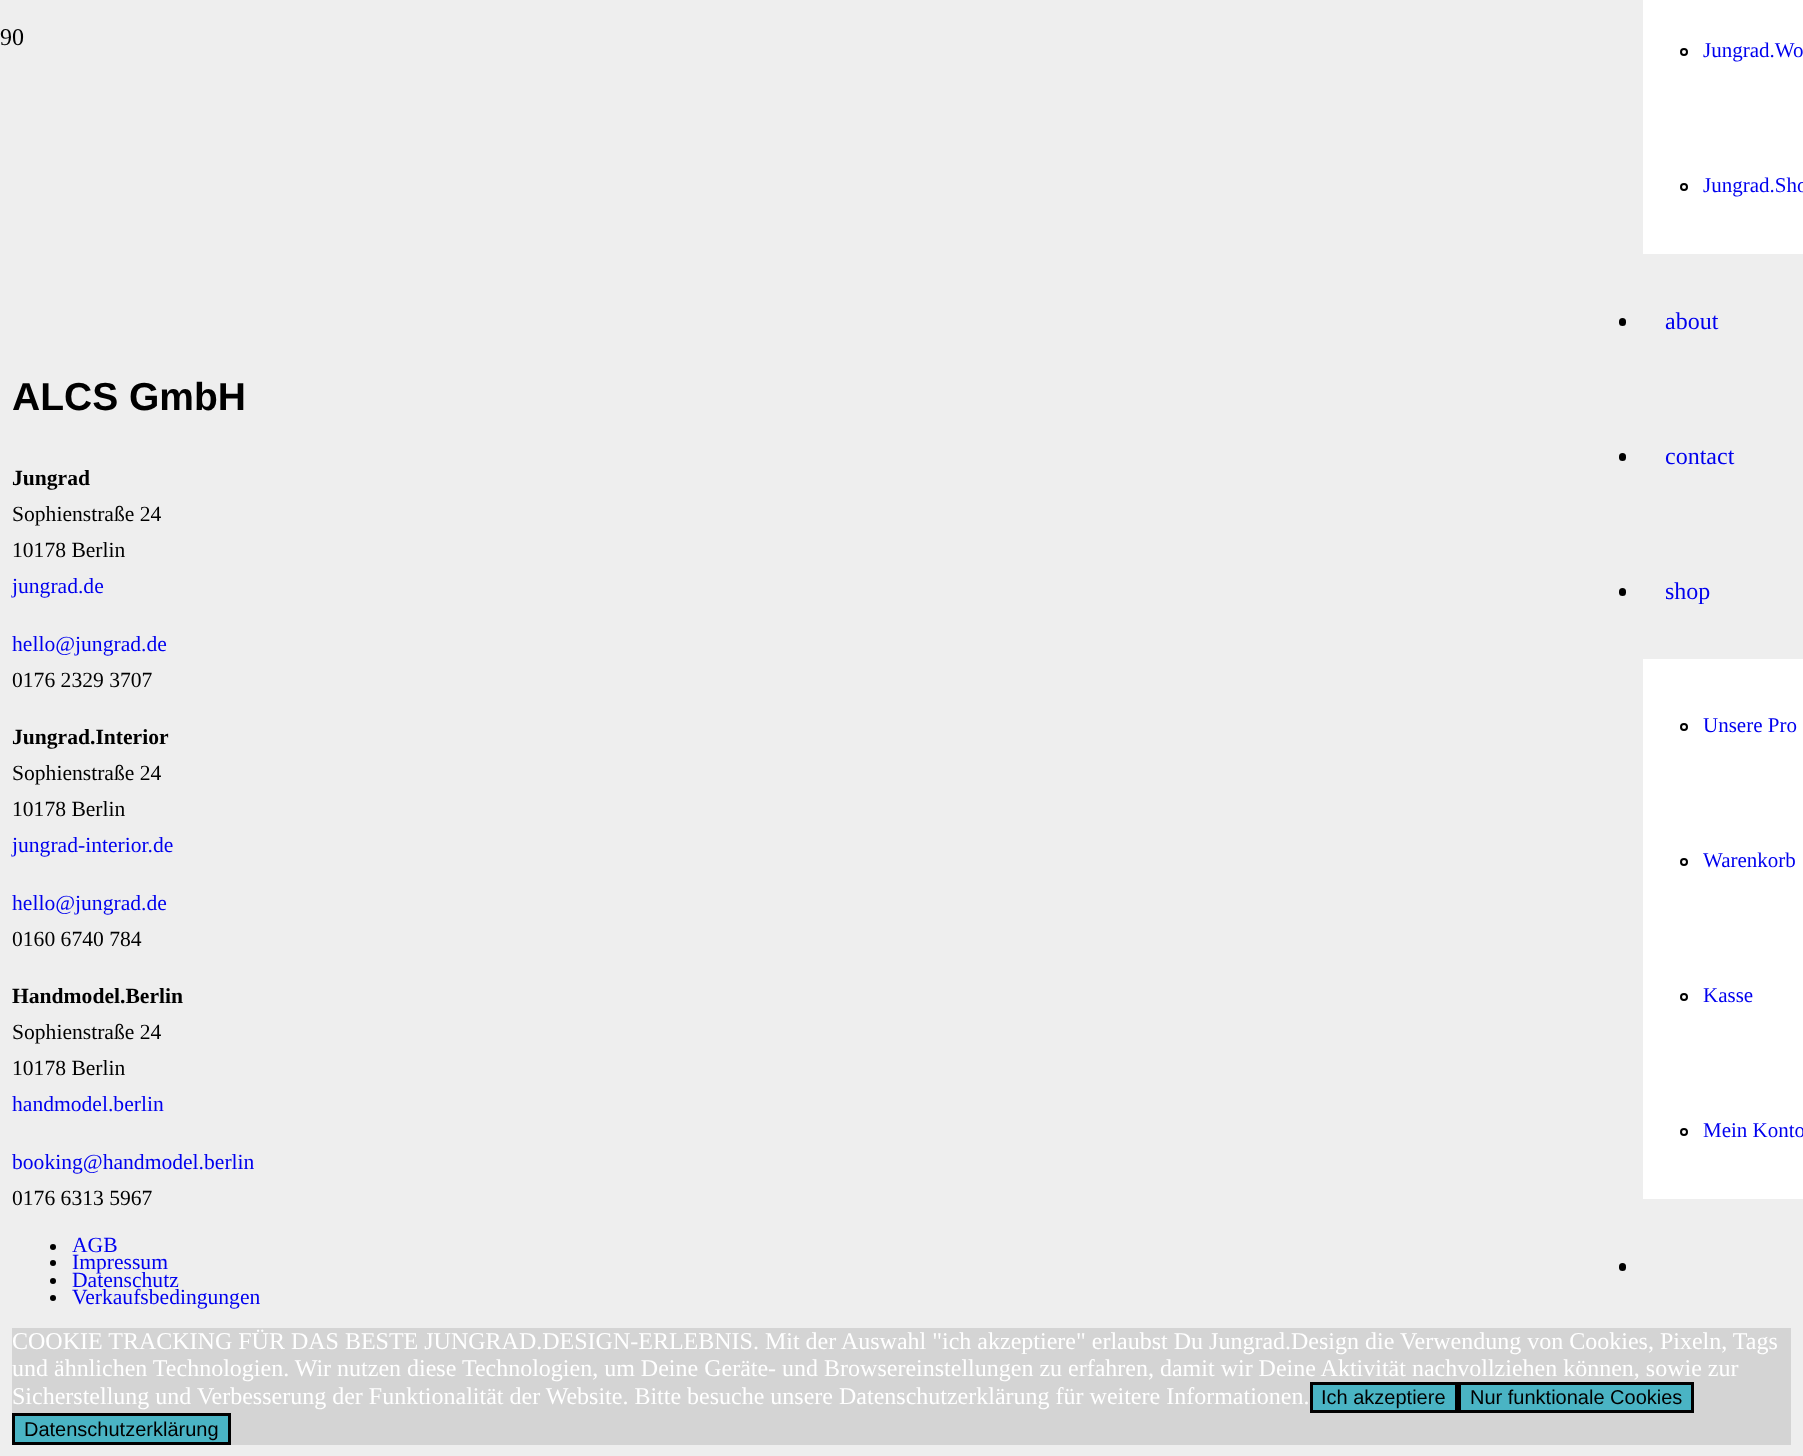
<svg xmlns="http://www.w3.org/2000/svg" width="1803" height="1456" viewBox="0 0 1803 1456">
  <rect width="100%" height="100%" fill="#eee"/>
  <path d="M1643 0h160v254H1643z" fill="#fff"/>
  <circle cx="1684" cy="52" r="3" fill="none" stroke="#000" stroke-width="2"/>
  <circle cx="1684" cy="187" r="3" fill="none" stroke="#000" stroke-width="2"/>
  <rect x="1619" y="318" width="7" height="8" rx="3.5" fill="#000"/>
  <rect x="1619" y="453" width="7" height="8" rx="3.5" fill="#000"/>
  <rect x="1619" y="588" width="7" height="8" rx="3.5" fill="#000"/>
  <path d="M1643 659h160v540H1643z" fill="#fff"/>
  <circle cx="1684" cy="727" r="3" fill="none" stroke="#000" stroke-width="2"/>
  <circle cx="1684" cy="862" r="3" fill="none" stroke="#000" stroke-width="2"/>
  <circle cx="1684" cy="997" r="3" fill="none" stroke="#000" stroke-width="2"/>
  <circle cx="1684" cy="1132" r="3" fill="none" stroke="#000" stroke-width="2"/>
  <rect x="1619" y="1263" width="7" height="8" rx="3.5" fill="#000"/>
  <circle cx="53" cy="1247" r="3" fill="#000"/>
  <circle cx="53" cy="1263" r="3" fill="#000"/>
  <circle cx="53" cy="1281" r="3" fill="#000"/>
  <circle cx="53" cy="1298" r="3" fill="#000"/>
  <path d="M12 1328h1779v117H12z" fill="#d4d4d4"/>
  <path d="M1311.5 1383.5h145v28H1311.5z" fill="#4ab4c4" stroke="#000" stroke-width="3"/>
  <path d="M1459.5 1383.5h233v28H1459.5z" fill="#4ab4c4" stroke="#000" stroke-width="3"/>
  <path d="M13.5 1414.5h216v29H13.5z" fill="#4ab4c4" stroke="#000" stroke-width="3"/>
  <text x="0" y="45" font-family="Liberation Serif" font-size="24" fill="#000">90</text>
  <g font-family="Liberation Serif" font-size="21" fill="#00e">
    <text x="1703" y="57">Jungrad.Wo</text>
    <text x="1703" y="192">Jungrad.Sho</text>
  </g>
  <g font-family="Liberation Serif" font-size="24" fill="#00e">
    <text x="1665" y="329">about</text>
    <text x="1665" y="464">contact</text>
    <text x="1665" y="599">shop</text>
  </g>
  <g font-family="Liberation Serif" font-size="21" fill="#00e">
    <text x="1703" y="732">Unsere Pro</text>
    <text x="1703" y="867">Warenkorb</text>
    <text x="1703" y="1002">Kasse</text>
    <text x="1703" y="1137">Mein Konto</text>
  </g>
  <text x="12" y="410" font-family="Liberation Sans" font-size="39" font-weight="bold" fill="#000">ALCS GmbH</text>
  <text x="12" y="485" font-family="Liberation Serif" font-size="21.6" font-weight="bold" fill="#000">Jungrad</text>
  <g font-family="Liberation Serif" font-size="21.6" fill="#000">
    <text x="12" y="521">Sophienstraße 24</text>
    <text x="12" y="557">10178 Berlin</text>
  </g>
  <g font-family="Liberation Serif" font-size="21.6" fill="#00e">
    <text x="12" y="593">jungrad.de</text>
    <text x="12" y="651">hello@jungrad.de</text>
  </g>
  <text x="12" y="687" font-family="Liberation Serif" font-size="21.6" fill="#000">0176 2329 3707</text>
  <text x="12" y="744" font-family="Liberation Serif" font-size="21.6" font-weight="bold" fill="#000">Jungrad.Interior</text>
  <g font-family="Liberation Serif" font-size="21.6" fill="#000">
    <text x="12" y="780">Sophienstraße 24</text>
    <text x="12" y="816">10178 Berlin</text>
  </g>
  <g font-family="Liberation Serif" font-size="21.6" fill="#00e">
    <text x="12" y="852">jungrad-interior.de</text>
    <text x="12" y="910">hello@jungrad.de</text>
  </g>
  <text x="12" y="946" font-family="Liberation Serif" font-size="21.6" fill="#000">0160 6740 784</text>
  <text x="12" y="1003" font-family="Liberation Serif" font-size="21.6" font-weight="bold" fill="#000">Handmodel.Berlin</text>
  <g font-family="Liberation Serif" font-size="21.6" fill="#000">
    <text x="12" y="1039">Sophienstraße 24</text>
    <text x="12" y="1075">10178 Berlin</text>
  </g>
  <g font-family="Liberation Serif" font-size="21.6" fill="#00e">
    <text x="12" y="1111">handmodel.berlin</text>
    <text x="12" y="1169">booking@handmodel.berlin</text>
  </g>
  <text x="12" y="1205" font-family="Liberation Serif" font-size="21.6" fill="#000">0176 6313 5967</text>
  <g font-family="Liberation Serif" font-size="21.6" fill="#00e">
    <text x="72" y="1252">AGB</text>
    <text x="72" y="1269">Impressum</text>
    <text x="72" y="1287">Datenschutz</text>
    <text x="72" y="1304">Verkaufsbedingungen</text>
  </g>
  <g font-family="Liberation Serif" font-size="24" fill="#fff">
    <text x="12" y="1349">COOKIE TRACKING FÜR DAS BESTE JUNGRAD.DESIGN-ERLEBNIS. Mit der Auswahl "ich akzeptiere" erlaubst Du Jungrad.Design die Verwendung von Cookies, Pixeln, Tags</text>
    <text x="12" y="1376">und ähnlichen Technologien. Wir nutzen diese Technologien, um Deine Geräte- und Browsereinstellungen zu erfahren, damit wir Deine Aktivität nachvollziehen können, sowie zur</text>
    <text x="12" y="1404">Sicherstellung und Verbesserung der Funktionalität der Website. Bitte besuche unsere Datenschutzerklärung für weitere Informationen.</text>
  </g>
  <g font-family="Liberation Sans" font-size="20" fill="#000">
    <text x="1321" y="1404">Ich akzeptiere</text>
    <text x="1470" y="1404">Nur funktionale Cookies</text>
    <text x="24" y="1436">Datenschutzerklärung</text>
  </g>
</svg>
